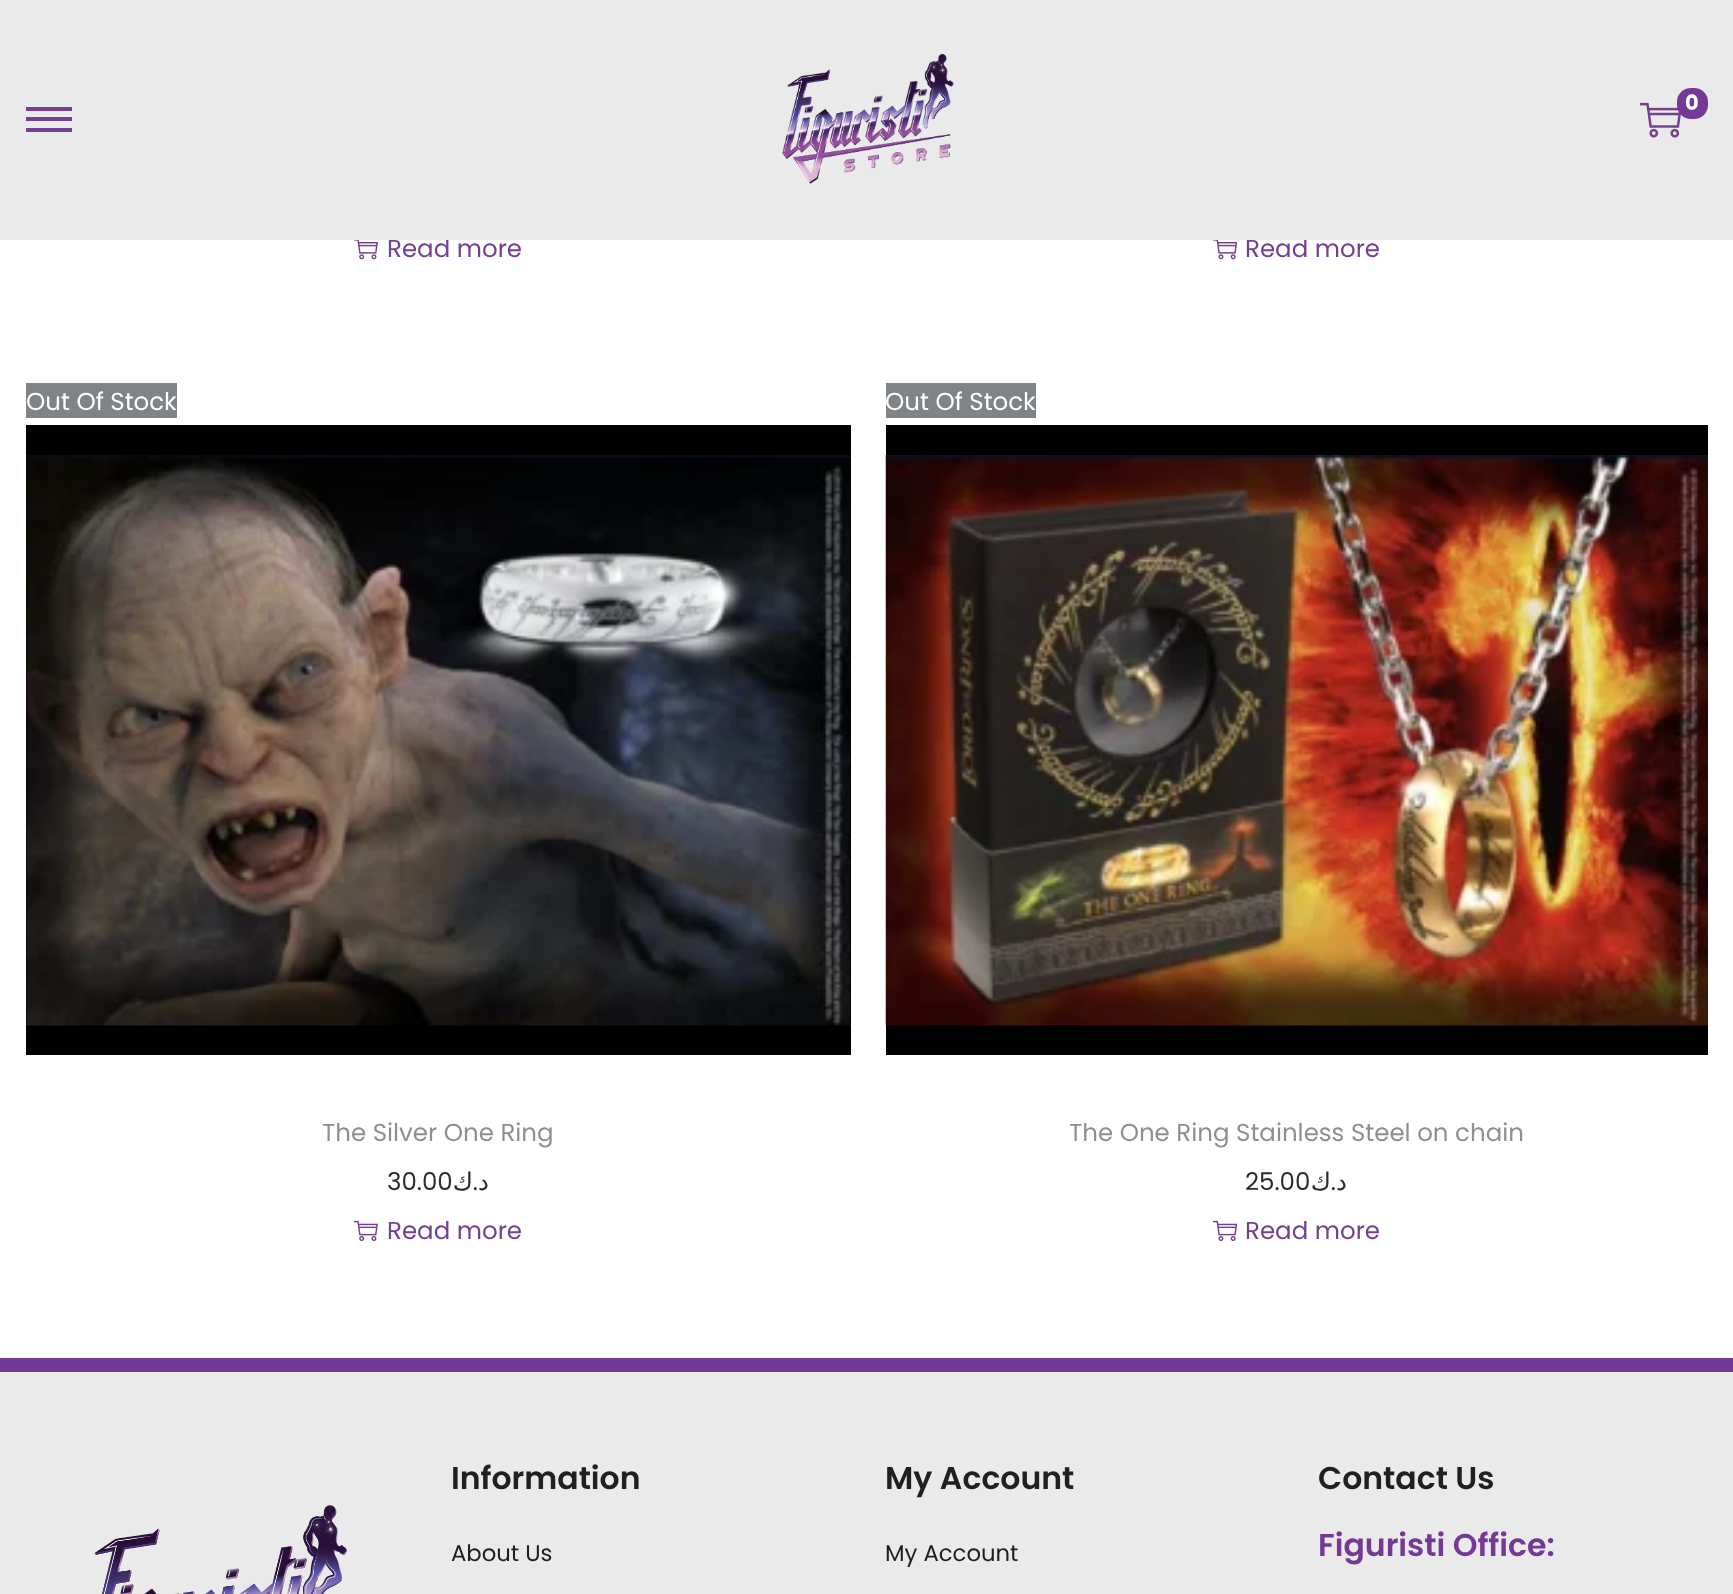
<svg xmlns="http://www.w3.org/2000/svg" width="1733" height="1594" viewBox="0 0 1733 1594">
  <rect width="100%" height="100%" fill="#fff"/>
  <image x="354" y="240" width="24" height="20" href="img/3.png"/>
  <image x="1213" y="240" width="24" height="20" href="img/4.png"/>
  <path d="M26 383h151v35H26z" fill="#818486"/>
  <path d="M26 425h825v630H26z" fill="#000"/>
  <image x="26" y="455" width="825" height="571" href="img/5.png"/>
  <image x="354" y="1220" width="24" height="21" href="img/6.png"/>
  <path d="M886 383h150v35H886z" fill="#818486"/>
  <path d="M886 425h822v630H886z" fill="#000"/>
  <image x="885" y="455" width="823" height="571" href="img/7.png"/>
  <image x="1213" y="1220" width="24" height="21" href="img/8.png"/>
  <path d="M0 1372h1733v222H0z" fill="#eaeaea"/>
  <path d="M0 1358h1733v14H0z" fill="#743896"/>
  <image x="94" y="1505" width="254" height="89" href="img/9.png"/>
  <g font-family="Poppins" font-size="24.5" fill="#744091">
    <text x="387" y="257">Read more</text>
    <text x="1245" y="257">Read more</text>
  </g>
  <path d="M0 0h1733v240H0z" fill="#eaeaea"/>
  <image x="1640" y="102" width="41" height="36" href="img/2.png"/>
  <rect x="1677" y="88" width="31" height="31" rx="14" fill="#743896"/>
  <text x="1685" y="110" font-family="Poppins" font-size="21" font-weight="bold" fill="#fff">0</text>
  <path d="M26 128h46v4H26z" fill="#744091"/>
  <path d="M26 107h46v4H26z" fill="#744091"/>
  <path d="M26 117h46v4H26z" fill="#744091"/>
  <image x="782" y="53" width="172" height="131" href="img/1.png"/>
  <text x="26" y="410" font-family="Poppins" font-size="24.5" fill="#fff">Out Of Stock</text>
  <text x="322" y="1141" font-family="Poppins" font-size="24.5" fill="#8f8f8f">The Silver One Ring</text>
  <text x="387" y="1190" font-family="Poppins" font-size="24.5" fill="#2b2b2b">30.00</text>
  <text x="473" y="1190" font-family="DejaVu Sans" font-size="24.5" direction="rtl" fill="#2b2b2b">ك</text>
  <text x="478" y="1190" font-family="Poppins" font-size="24.5" direction="rtl" fill="#2b2b2b">.</text>
  <text x="489" y="1190" font-family="DejaVu Sans" font-size="24.5" direction="rtl" fill="#2b2b2b">د</text>
  <text x="387" y="1239" font-family="Poppins" font-size="24.5" fill="#744091">Read more</text>
  <text x="885" y="410" font-family="Poppins" font-size="24.5" fill="#fff">Out Of Stock</text>
  <text x="1069" y="1141" font-family="Poppins" font-size="24.5" fill="#8f8f8f">The One Ring Stainless Steel on chain</text>
  <text x="1245" y="1190" font-family="Poppins" font-size="24.5" fill="#2b2b2b">25.00</text>
  <text x="1331" y="1190" font-family="DejaVu Sans" font-size="24.5" direction="rtl" fill="#2b2b2b">ك</text>
  <text x="1336" y="1190" font-family="Poppins" font-size="24.5" direction="rtl" fill="#2b2b2b">.</text>
  <text x="1347" y="1190" font-family="DejaVu Sans" font-size="24.5" direction="rtl" fill="#2b2b2b">د</text>
  <text x="1245" y="1239" font-family="Poppins" font-size="24.5" fill="#744091">Read more</text>
  <text x="451" y="1489" font-family="Poppins" font-size="31.5" font-weight="600" fill="#202020">Information</text>
  <text x="451" y="1561" font-family="Poppins" font-size="22.75" fill="#202020">About Us</text>
  <text x="885" y="1489" font-family="Poppins" font-size="31.5" font-weight="600" fill="#202020">My Account</text>
  <text x="885" y="1561" font-family="Poppins" font-size="22.75" fill="#202020">My Account</text>
  <text x="1318" y="1489" font-family="Poppins" font-size="31.5" font-weight="600" fill="#202020">Contact Us</text>
  <text x="1318" y="1556" font-family="Poppins" font-size="31.5" font-weight="600" fill="#743896">Figuristi Office:</text>
</svg>
